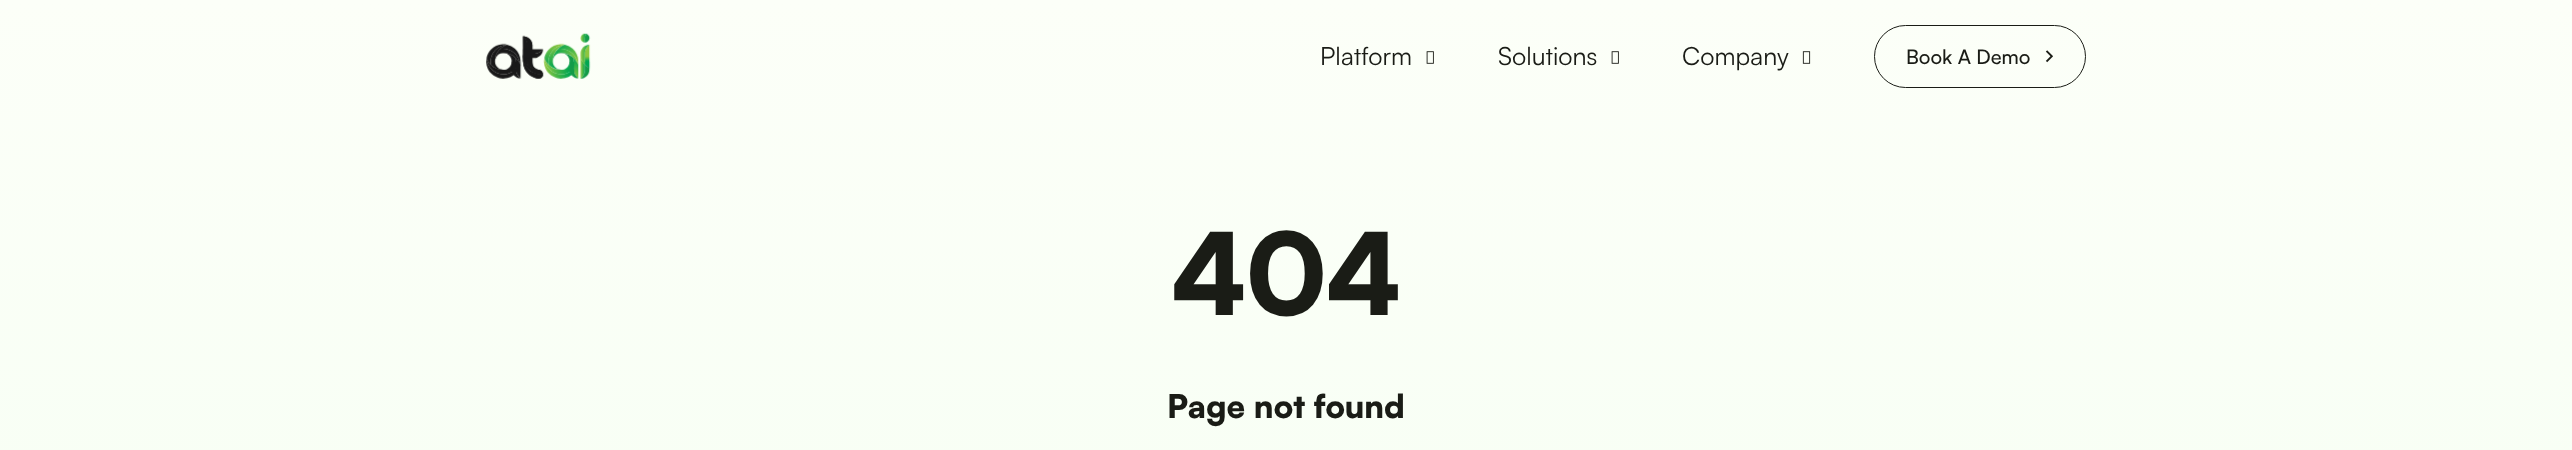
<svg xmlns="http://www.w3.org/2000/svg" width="2572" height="450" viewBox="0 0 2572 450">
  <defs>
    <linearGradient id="g1" gradientUnits="userSpaceOnUse" x1="1286" y1="0" x2="1286" y2="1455"><stop offset="0" stop-color="#fcfff8"/><stop offset="1" stop-color="#f0ffef"/></linearGradient>
  </defs>
  <rect width="100%" height="100%" fill="#fff"/>
  <path d="M0 0h2572v450H0z" fill="url(#g1)"/>
  <image x="486" y="33" width="105" height="46" href="img/1.png"/>
  <image x="1426" y="51" width="8" height="13" href="img/2.png"/>
  <image x="1611" y="51" width="8" height="13" href="img/2.png"/>
  <image x="1802" y="51" width="9" height="13" href="img/3.png"/>
  <rect x="1874.5" y="25.5" width="211" height="62" rx="31" fill="none" stroke="#1a1c16"/>
  <image x="2045" y="50" width="8" height="13" href="img/4.png"/>
  <g font-family="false" font-size="25" fill="#1a1c16">
    <text x="1320" y="65">Platform</text>
    <text x="1498" y="65">Solutions</text>
    <text x="1682" y="65">Company</text>
  </g>
  <text x="1906" y="64" font-family="Satoshi" font-size="20" font-weight="500" fill="#1a1c16">Book A Demo</text>
  <text x="1172" y="315" font-family="Satoshi" font-size="112.5" font-weight="900" fill="#1a1c16">404</text>
  <text x="1167" y="418" font-family="Satoshi" font-size="32.5" font-weight="900" fill="#1a1c16">Page not found</text>
</svg>
